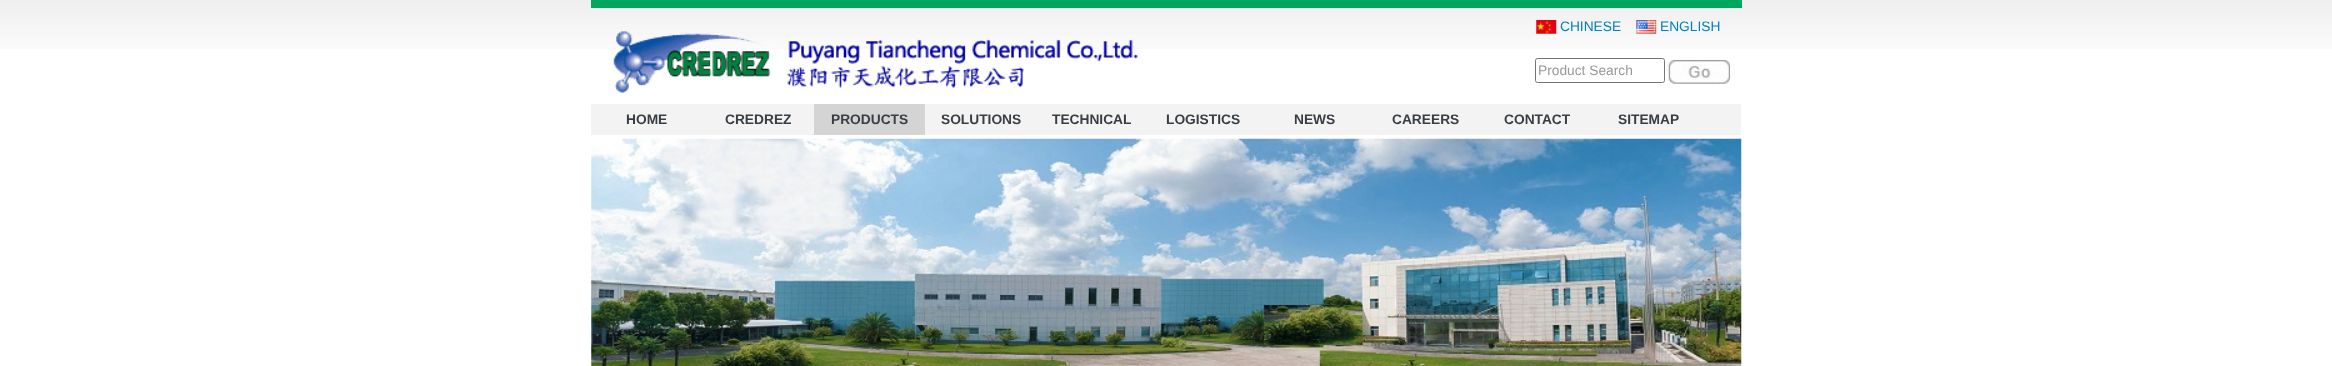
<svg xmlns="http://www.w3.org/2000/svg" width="2332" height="366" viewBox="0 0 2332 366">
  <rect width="100%" height="100%" fill="#fff"/>
  <image x="0" y="0" width="2332" height="49" href="img/1.png"/>
  <path d="M591 0h1151v8H591z" fill="#00a65e"/>
  <image x="1536" y="20" width="21" height="14" href="img/2.png"/>
  <image x="1636" y="20" width="21" height="14" href="img/3.png"/>
  <image x="613" y="31" width="525" height="62" href="img/4.png"/>
  <rect x="1535.5" y="58.5" width="129" height="24" rx="2" fill="none" stroke="#767676"/>
  <image x="1668" y="60" width="62" height="24" href="img/5.png"/>
  <path d="M591 104h1150v31H591z" fill="#f3f3f3"/>
  <path d="M814 104h111v31H814z" fill="#d4d4d4"/>
  <image x="591" y="138" width="1151" height="228" href="img/6.png"/>
  <g font-family="Liberation Sans" font-size="13.75" fill="#0081ba">
    <text x="1560" y="31">CHINESE</text>
    <text x="1660" y="31">ENGLISH</text>
  </g>
  <text x="1538" y="75" font-family="Liberation Sans" font-size="13.75" fill="#999">Product Search</text>
  <g font-family="Liberation Sans" font-size="13.75" font-weight="bold" fill="#393e44">
    <text x="626" y="124">HOME</text>
    <text x="725" y="124">CREDREZ</text>
    <text x="831" y="124">PRODUCTS</text>
    <text x="941" y="124">SOLUTIONS</text>
    <text x="1052" y="124">TECHNICAL</text>
    <text x="1166" y="124">LOGISTICS</text>
    <text x="1294" y="124">NEWS</text>
    <text x="1392" y="124">CAREERS</text>
    <text x="1504" y="124">CONTACT</text>
    <text x="1618" y="124">SITEMAP</text>
  </g>
</svg>
